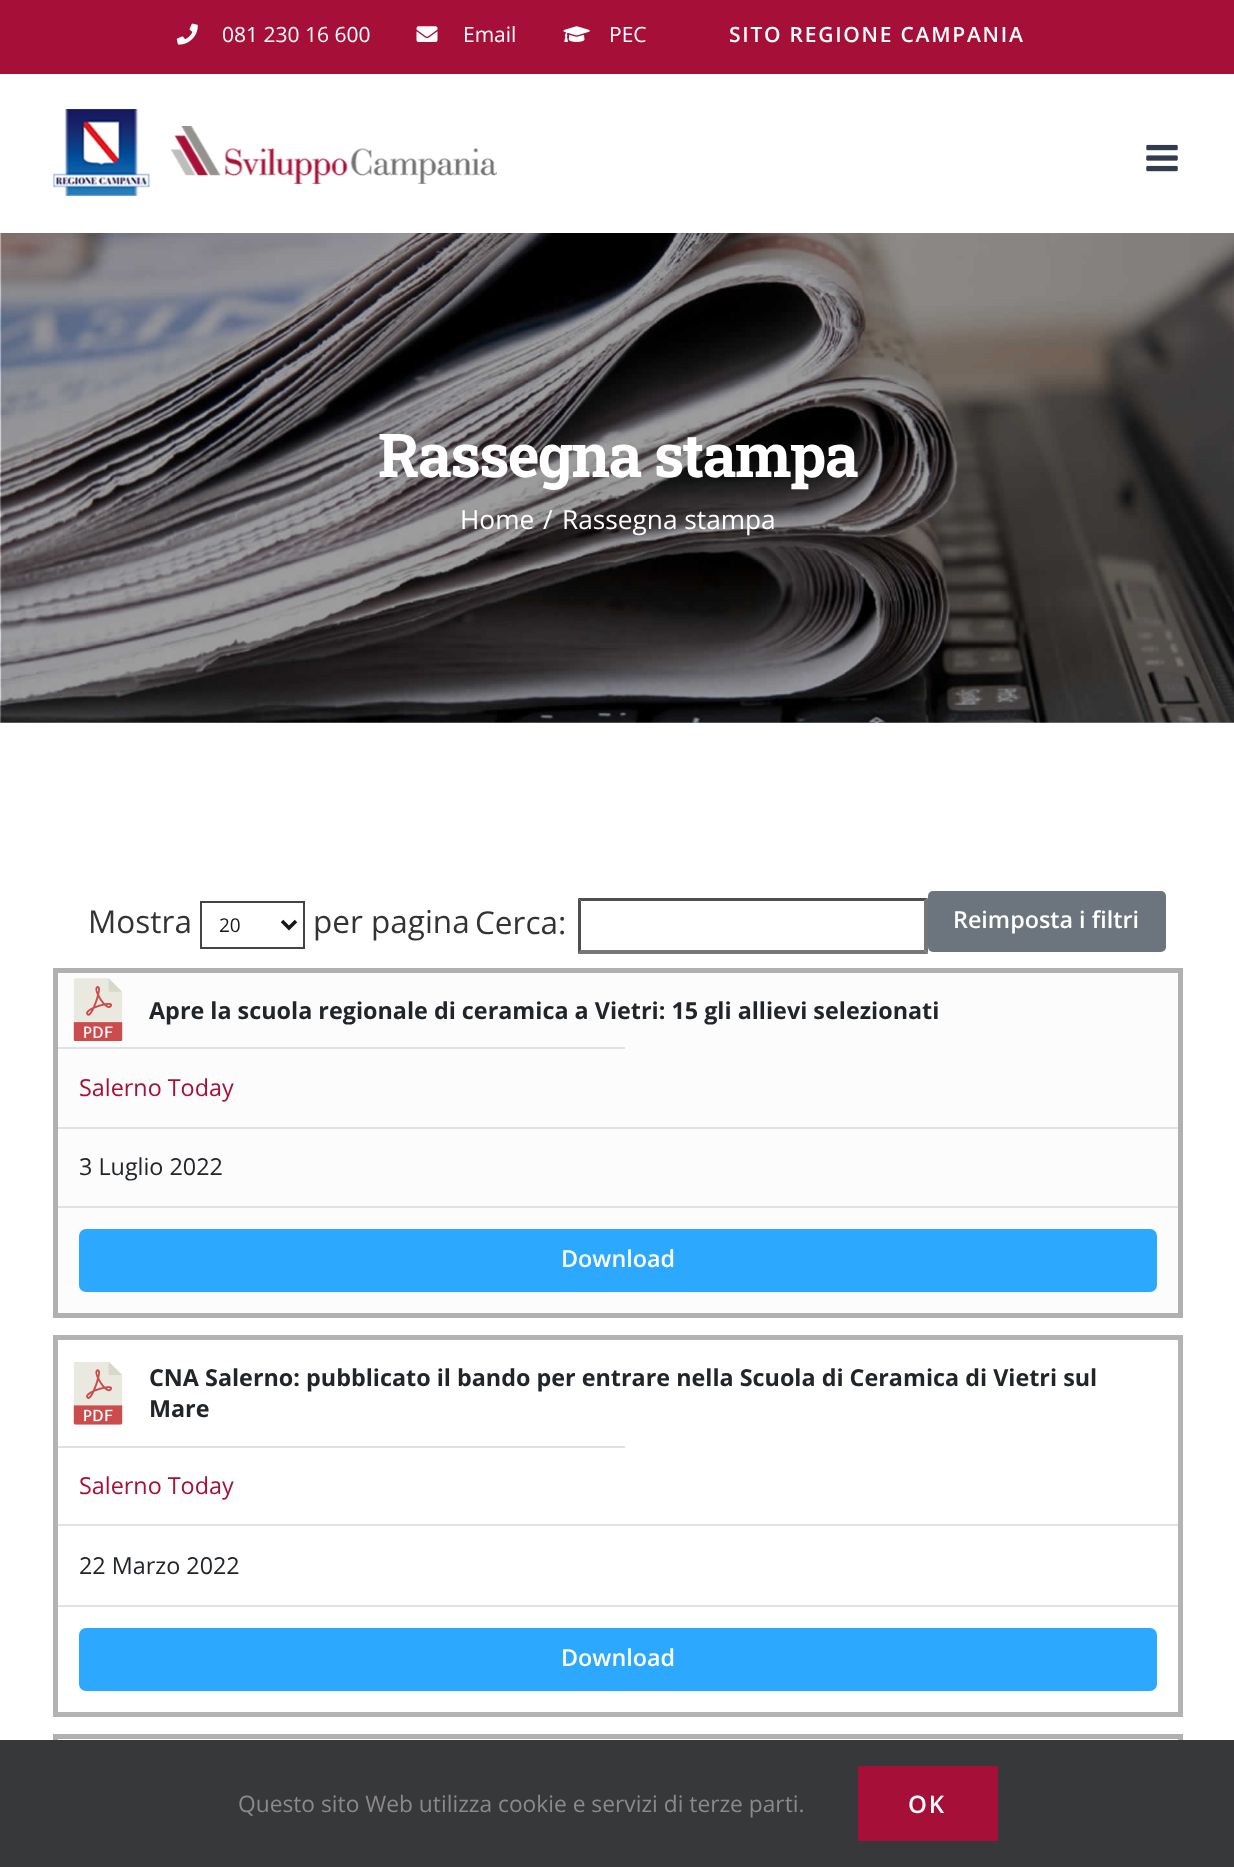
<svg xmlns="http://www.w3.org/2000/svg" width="1234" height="1867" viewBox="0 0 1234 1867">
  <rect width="100%" height="100%" fill="#fff"/>
  <path d="M0 0h1234v74H0z" fill="#a60f38"/>
  <image x="176" y="23" width="22" height="22" href="img/1.png"/>
  <image x="416" y="26" width="22" height="16" href="img/2.png"/>
  <image x="563" y="26" width="27" height="16" href="img/3.png"/>
  <image x="53" y="109" width="444" height="87" href="img/4.png"/>
  <image x="1146" y="144" width="32" height="28" href="img/5.png"/>
  <image x="0" y="233" width="1234" height="490" href="img/6.png"/>
  <path d="M201 902h103v46H201z" fill="none" stroke="#444" stroke-width="2"/>
  <path d="M282 921L289 928L296 921" fill="none" stroke="#171717" stroke-width="3.5"/>
  <path d="M578 898H928L924 901H581Z" fill="#4f4f4f"/>
  <path d="M928 898V954L924 950V901Z" fill="#767676"/>
  <path d="M928 954H578L581 950H924Z" fill="#767676"/>
  <path d="M578 954V898L581 901V950Z" fill="#4f4f4f"/>
  <rect x="928" y="891" width="238" height="61" rx="5" fill="#6c757d"/>
  <path d="M55.5 970.5h1125v345H55.5z" fill="#fcfcfc" stroke="#b0b0b0" stroke-width="5"/>
  <image x="73" y="978" width="50" height="63" href="img/7.png"/>
  <path d="M58 1047h567v2H58z" fill="#dee2e6"/>
  <path d="M58 1127h1120v2H58z" fill="#dee2e6"/>
  <path d="M58 1206h1120v2H58z" fill="#dee2e6"/>
  <rect x="79" y="1229" width="1078" height="63" rx="7" fill="#2ca8ff"/>
  <path d="M55.5 1337.5h1125v377H55.5z" fill="none" stroke="#b3b3b3" stroke-width="5"/>
  <image x="73" y="1362" width="50" height="63" href="img/8.png"/>
  <path d="M58 1446h567v2H58z" fill="#dee2e6"/>
  <path d="M58 1524h1120v2H58z" fill="#dee2e6"/>
  <path d="M58 1605h1120v2H58z" fill="#dee2e6"/>
  <rect x="79" y="1628" width="1078" height="63" rx="7" fill="#2ca8ff"/>
  <path d="M58 1739h1120v1H58z" fill="#fbfbfb"/>
  <path d="M55.5 1736.5h1125v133H55.5z" fill="none" stroke="#b0b0b0" stroke-width="5"/>
  <path d="M0 1740h1234v127H0z" fill="#363839"/>
  <path d="M858 1766h140v75H858z" fill="#a60f38"/>
  <g font-family="Open Sans" font-size="21" fill="#fff">
    <text x="222" y="42">081 230 16 600</text>
    <text x="463" y="42">Email</text>
    <text x="609" y="42">PEC</text>
  </g>
  <text x="729" y="42" font-family="Open Sans" font-size="21" font-weight="600" letter-spacing="1.75" fill="#fff">SITO REGIONE CAMPANIA</text>
  <text x="378" y="477" font-family="Roboto Slab" font-size="60.5" font-weight="bold" letter-spacing="-1.75" fill="#fff">Rassegna stampa</text>
  <g font-family="Open Sans" font-size="26.25" fill="#fff">
    <text x="460" y="529">Home</text>
    <text x="543" y="529">/</text>
    <text x="562" y="529">Rassegna stampa</text>
  </g>
  <text x="88" y="933" font-family="Open Sans" font-size="31.5" fill="#333">Mostra</text>
  <text x="219" y="932" font-family="Open Sans" font-size="19" fill="#171717">20</text>
  <g font-family="Open Sans" font-size="31.5" fill="#333">
    <text x="313" y="933">per pagina</text>
    <text x="475" y="934">Cerca:</text>
  </g>
  <text x="953" y="928" font-family="Open Sans" font-size="23.35" font-weight="600" fill="#fff">Reimposta i filtri</text>
  <text x="149" y="1019" font-family="Open Sans" font-size="23.35" font-weight="bold" fill="#212529">Apre la scuola regionale di ceramica a Vietri: 15 gli allievi selezionati</text>
  <text x="79" y="1096" font-family="Open Sans" font-size="23.35" fill="#a60f38">Salerno Today</text>
  <text x="79" y="1175" font-family="Open Sans" font-size="23.35" fill="#212529">3 Luglio 2022</text>
  <text x="561" y="1267" font-family="Open Sans" font-size="23.35" font-weight="600" fill="#fff">Download</text>
  <g font-family="Open Sans" font-size="23.35" font-weight="bold" fill="#212529">
    <text x="149" y="1386">CNA Salerno: pubblicato il bando per entrare nella Scuola di Ceramica di Vietri sul</text>
    <text x="149" y="1417">Mare</text>
  </g>
  <text x="79" y="1494" font-family="Open Sans" font-size="23.35" fill="#a60f38">Salerno Today</text>
  <text x="79" y="1574" font-family="Open Sans" font-size="23.35" fill="#212529">22 Marzo 2022</text>
  <text x="561" y="1666" font-family="Open Sans" font-size="23.35" font-weight="600" fill="#fff">Download</text>
  <text x="238" y="1812" font-family="Open Sans" font-size="22.75" fill="#8c8989">Questo sito Web utilizza cookie e servizi di terze parti.</text>
  <text x="908" y="1813" font-family="Open Sans" font-size="24" font-weight="600" letter-spacing="1.75" fill="#fff">OK</text>
</svg>
